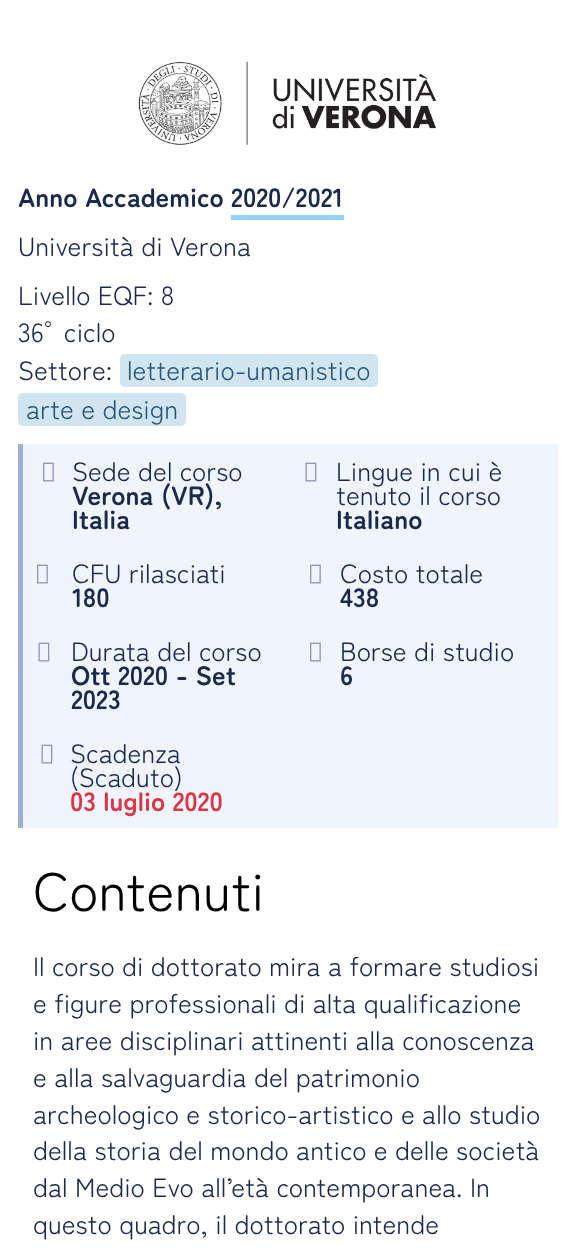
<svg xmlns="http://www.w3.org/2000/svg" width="575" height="1260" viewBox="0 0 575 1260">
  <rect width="100%" height="100%" fill="#fff"/>
  <image x="138" y="61" width="299" height="84" href="img/1.png"/>
  <path d="M231 215h113v5H231z" fill="#91d1ff"/>
  <rect x="120" y="354" width="258" height="33" rx="5" fill="#d1e5f1"/>
  <rect x="18" y="393" width="168" height="33" rx="5" fill="#d1e5f1"/>
  <path d="M23 444h535v384H23z" fill="#f0f4fc"/>
  <path d="M18 444h5v384H18z" fill="#a1afcf"/>
  <image x="43" y="462" width="11" height="20" href="img/2.png"/>
  <image x="305" y="462" width="12" height="20" href="img/3.png"/>
  <image x="37" y="564" width="11" height="20" href="img/2.png"/>
  <image x="310" y="564" width="11" height="20" href="img/2.png"/>
  <image x="38" y="642" width="12" height="20" href="img/3.png"/>
  <image x="310" y="642" width="11" height="20" href="img/2.png"/>
  <image x="41" y="744" width="12" height="20" href="img/3.png"/>
  <text x="18" y="207" font-family="Zen Maru Gothic" font-size="26.4" font-weight="bold" fill="#1b2a4a">Anno Accademico 2020/2021</text>
  <g font-family="Zen Maru Gothic" font-size="26.4" fill="#1b2a4a">
    <text x="18" y="256">Università di Verona</text>
    <text x="18" y="305">Livello EQF: 8</text>
    <text x="18" y="342">36° ciclo</text>
    <text x="18" y="380">Settore:</text>
  </g>
  <g font-family="Zen Maru Gothic" font-size="26.4" fill="#2c5777">
    <text x="127" y="380">letterario-umanistico</text>
    <text x="26" y="419">arte e design</text>
  </g>
  <text x="72" y="481" font-family="Zen Maru Gothic" font-size="26.4" fill="#1b2a4a">Sede del corso</text>
  <g font-family="Zen Maru Gothic" font-size="26.4" font-weight="bold" fill="#1b2a4a">
    <text x="72" y="505">Verona (VR),</text>
    <text x="72" y="529">Italia</text>
  </g>
  <g font-family="Zen Maru Gothic" font-size="26.4" fill="#1b2a4a">
    <text x="336" y="481">Lingue in cui è</text>
    <text x="336" y="505">tenuto il corso</text>
  </g>
  <text x="336" y="529" font-family="Zen Maru Gothic" font-size="26.4" font-weight="bold" fill="#1b2a4a">Italiano</text>
  <text x="72" y="583" font-family="Zen Maru Gothic" font-size="26.4" fill="#1b2a4a">CFU rilasciati</text>
  <text x="72" y="607" font-family="Zen Maru Gothic" font-size="26.4" font-weight="bold" fill="#1b2a4a">180</text>
  <text x="340" y="583" font-family="Zen Maru Gothic" font-size="26.4" fill="#1b2a4a">Costo totale</text>
  <text x="340" y="607" font-family="Zen Maru Gothic" font-size="26.4" font-weight="bold" fill="#1b2a4a">438</text>
  <text x="71" y="661" font-family="Zen Maru Gothic" font-size="26.4" fill="#1b2a4a">Durata del corso</text>
  <g font-family="Zen Maru Gothic" font-size="26.4" font-weight="bold" fill="#1b2a4a">
    <text x="71" y="685">Ott 2020 - Set</text>
    <text x="71" y="709">2023</text>
  </g>
  <text x="340" y="661" font-family="Zen Maru Gothic" font-size="26.4" fill="#1b2a4a">Borse di studio</text>
  <text x="340" y="685" font-family="Zen Maru Gothic" font-size="26.4" font-weight="bold" fill="#1b2a4a">6</text>
  <g font-family="Zen Maru Gothic" font-size="26.4" fill="#1b2a4a">
    <text x="70" y="763">Scadenza</text>
    <text x="70" y="787">(Scaduto)</text>
  </g>
  <text x="70" y="811" font-family="Zen Maru Gothic" font-size="26.4" font-weight="bold" fill="#dc3545">03 luglio 2020</text>
  <text x="33" y="911" font-family="Zen Maru Gothic" font-size="54" fill="#000">Contenuti</text>
  <g font-family="Zen Maru Gothic" font-size="26.4" fill="#1b2a4a">
    <text x="33" y="976">Il corso di dottorato mira a formare studiosi</text>
    <text x="33" y="1013">e figure professionali di alta qualificazione</text>
    <text x="33" y="1050">in aree disciplinari attinenti alla conoscenza</text>
    <text x="33" y="1087">e alla salvaguardia del patrimonio</text>
    <text x="33" y="1124">archeologico e storico-artistico e allo studio</text>
    <text x="33" y="1160">della storia del mondo antico e delle società</text>
    <text x="33" y="1197">dal Medio Evo all’età contemporanea. In</text>
    <text x="33" y="1234">questo quadro, il dottorato intende</text>
  </g>
</svg>
